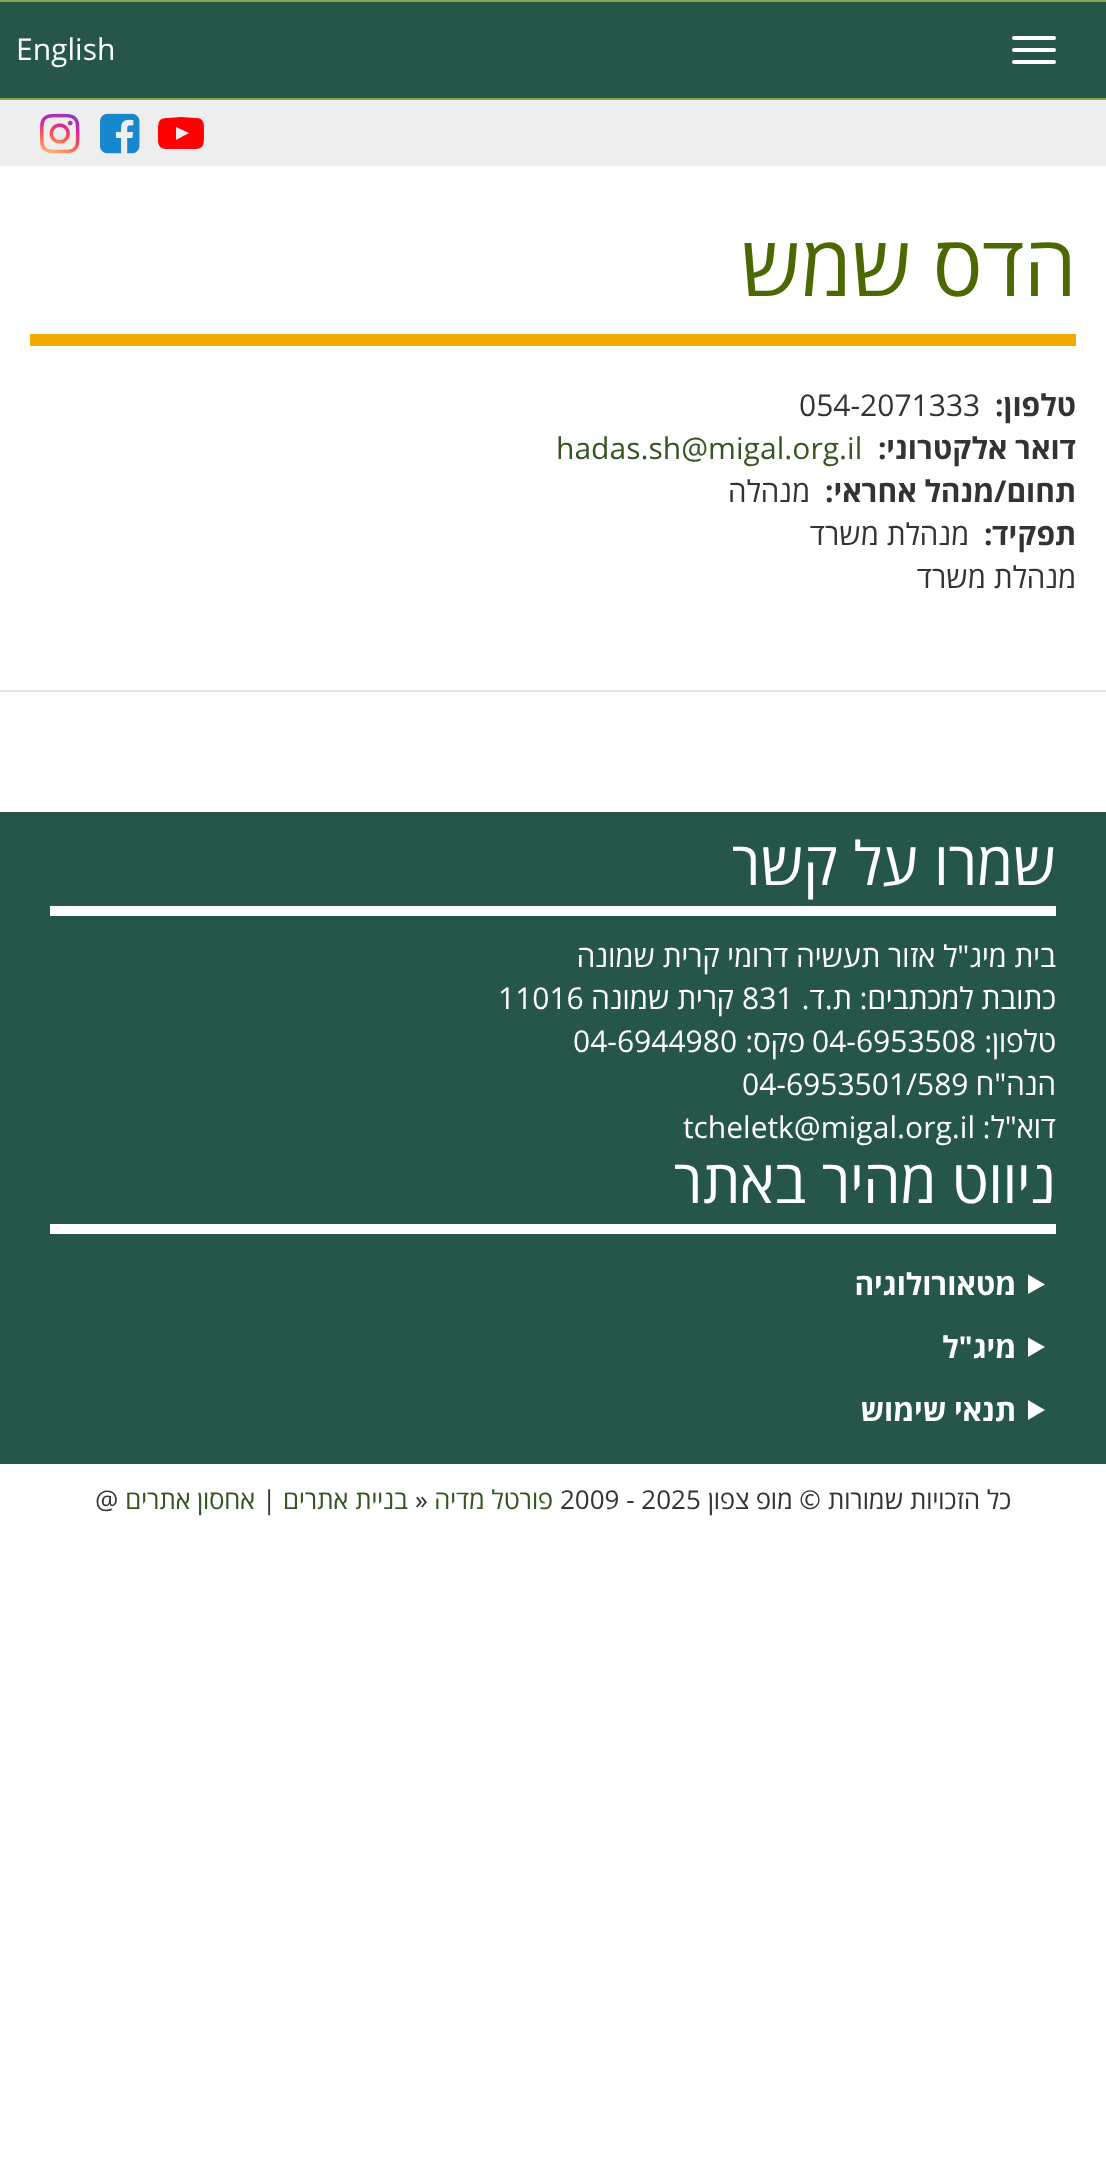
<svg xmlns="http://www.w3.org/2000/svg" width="1106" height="2173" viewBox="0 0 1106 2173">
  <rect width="100%" height="100%" fill="#fff"/>
  <path d="M0 2h1106v96H0z" fill="#26564a"/>
  <path d="M0 0h1106v2H0z" fill="#89a54e"/>
  <path d="M0 98h1106v2H0z" fill="#89a54e"/>
  <rect x="1012" y="36" width="44" height="4" rx="2" fill="#fff"/>
  <rect x="1012" y="48" width="44" height="4" rx="2" fill="#fff"/>
  <rect x="1012" y="60" width="44" height="4" rx="2" fill="#fff"/>
  <path d="M0 100h1106v66H0z" fill="#eee"/>
  <path d="M176 140L189 133L176 127ZM181 117L195 118C205 118 204 124 204 134C204 145 204 149 194 149H168C157 149 158 143 158 134C158 122 158 118 168 118Z" fill="#f00"/>
  <image x="100" y="113" width="40" height="41" href="img/1.png"/>
  <image x="40" y="113" width="40" height="41" href="img/2.png"/>
  <path d="M30 334h1046v12H30z" fill="#f1aa00"/>
  <path d="M0 690h1106v2H0z" fill="#e5e5e5"/>
  <path d="M0 812h1106v652H0z" fill="#26564a"/>
  <path d="M50 906h1006v10H50z" fill="#fff"/>
  <path d="M50 1224h1006v10H50z" fill="#fff"/>
  <path d="M1028 1274.5L1045 1284.5L1028 1294Z" fill="#fff"/>
  <path d="M1028 1337.5L1045 1347L1028 1357Z" fill="#fff"/>
  <path d="M1028 1400L1045 1410L1028 1420Z" fill="#fff"/>
  <text x="16" y="60" font-family="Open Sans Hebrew" font-size="30" fill="#fff">English</text>
  <text x="1076" y="296" font-family="Open Sans Hebrew" font-size="84" direction="rtl" fill="#4b6900">הדס שמש</text>
  <text x="1076" y="416" font-family="Open Sans Hebrew" font-size="30" font-weight="bold" direction="rtl" fill="#333">טלפון</text>
  <text x="995" y="416" font-family="Open Sans Hebrew" font-size="30" font-weight="bold" fill="#333">:</text>
  <text x="799" y="416" font-family="Open Sans Hebrew" font-size="30" fill="#333">054-2071333</text>
  <text x="1076" y="459" font-family="Open Sans Hebrew" font-size="30" font-weight="bold" direction="rtl" fill="#333">דואר אלקטרוני</text>
  <text x="878" y="459" font-family="Open Sans Hebrew" font-size="30" font-weight="bold" fill="#333">:</text>
  <text x="556" y="459" font-family="Open Sans Hebrew" font-size="30" fill="#345520">hadas.sh@migal.org.il</text>
  <text x="1076" y="502" font-family="Open Sans Hebrew" font-size="30" font-weight="bold" direction="rtl" fill="#333">תחום/מנהל אחראי</text>
  <text x="825" y="502" font-family="Open Sans Hebrew" font-size="30" font-weight="bold" fill="#333">:</text>
  <text x="810" y="502" font-family="Open Sans Hebrew" font-size="30" direction="rtl" fill="#333">מנהלה</text>
  <text x="1076" y="545" font-family="Open Sans Hebrew" font-size="30" font-weight="bold" direction="rtl" fill="#333">תפקיד</text>
  <text x="984" y="545" font-family="Open Sans Hebrew" font-size="30" font-weight="bold" fill="#333">:</text>
  <g font-family="Open Sans Hebrew" font-size="30" direction="rtl" fill="#333">
    <text x="969" y="545">מנהלת משרד</text>
    <text x="1076" y="588">מנהלת משרד</text>
  </g>
  <text x="1056" y="885" font-family="Open Sans Hebrew" font-size="60" direction="rtl" fill="#fff">שמרו על קשר</text>
  <g font-family="Open Sans Hebrew" font-size="30" direction="rtl" fill="#fff">
    <text x="1056" y="967">בית מיג"ל אזור תעשיה דרומי קרית שמונה</text>
    <text x="1056" y="1009">כתובת למכתבים: ת.ד.</text>
  </g>
  <text x="742" y="1009" font-family="Open Sans Hebrew" font-size="30" fill="#fff">831</text>
  <text x="734" y="1009" font-family="Open Sans Hebrew" font-size="30" direction="rtl" fill="#fff">קרית שמונה</text>
  <text x="498" y="1009" font-family="Open Sans Hebrew" font-size="30" fill="#fff">11016</text>
  <text x="1056" y="1052" font-family="Open Sans Hebrew" font-size="30" direction="rtl" fill="#fff">טלפון:</text>
  <text x="812" y="1052" font-family="Open Sans Hebrew" font-size="30" fill="#fff">04-6953508</text>
  <text x="805" y="1052" font-family="Open Sans Hebrew" font-size="30" direction="rtl" fill="#fff">פקס:</text>
  <text x="573" y="1052" font-family="Open Sans Hebrew" font-size="30" fill="#fff">04-6944980</text>
  <text x="1056" y="1095" font-family="Open Sans Hebrew" font-size="30" direction="rtl" fill="#fff">הנה"ח</text>
  <text x="742" y="1095" font-family="Open Sans Hebrew" font-size="30" fill="#fff">04-6953501/589</text>
  <text x="1056" y="1138" font-family="Open Sans Hebrew" font-size="30" direction="rtl" fill="#fff">דוא"ל:</text>
  <text x="683" y="1138" font-family="Open Sans Hebrew" font-size="30" fill="#fff">tcheletk@migal.org.il</text>
  <text x="1056" y="1203" font-family="Open Sans Hebrew" font-size="60" direction="rtl" fill="#fff">ניווט מהיר באתר</text>
  <g font-family="Open Sans Hebrew" font-size="30" font-weight="bold" direction="rtl" fill="#fff">
    <text x="1016" y="1295">מטאורולוגיה</text>
    <text x="1016" y="1358">מיג"ל</text>
    <text x="1016" y="1421">תנאי שימוש</text>
  </g>
  <text x="1011" y="1509" font-family="Open Sans Hebrew" font-size="26" direction="rtl" fill="#333">כל הזכויות שמורות © מופ צפון</text>
  <text x="560" y="1509" font-family="Open Sans Hebrew" font-size="26" fill="#333">2009 - 2025</text>
  <text x="553" y="1509" font-family="Open Sans Hebrew" font-size="26" direction="rtl" fill="#345520">פורטל מדיה</text>
  <text x="415" y="1509" font-family="Open Sans Hebrew" font-size="26" fill="#333">»</text>
  <text x="408" y="1509" font-family="Open Sans Hebrew" font-size="26" direction="rtl" fill="#345520">בניית אתרים</text>
  <text x="262" y="1509" font-family="Open Sans Hebrew" font-size="26" fill="#333">|</text>
  <text x="255" y="1509" font-family="Open Sans Hebrew" font-size="26" direction="rtl" fill="#345520">אחסון אתרים</text>
  <text x="95" y="1509" font-family="Open Sans Hebrew" font-size="26" fill="#333">@</text>
</svg>
